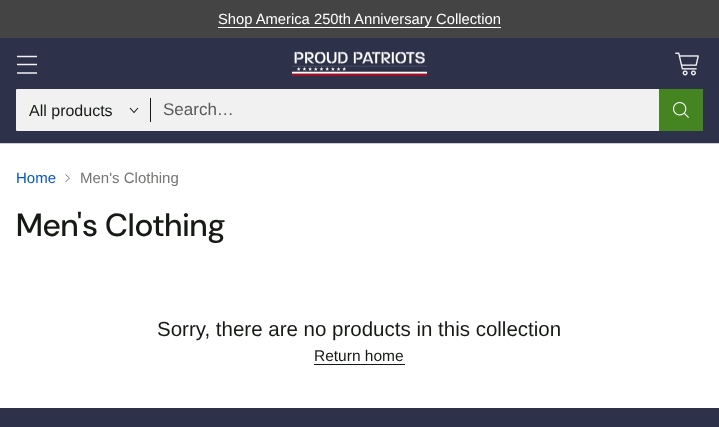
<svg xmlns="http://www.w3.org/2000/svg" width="719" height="427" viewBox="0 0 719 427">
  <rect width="100%" height="100%" fill="#fff"/>
  <path d="M0 143h719v1H0z" fill="#e6e6e6"/>
  <path d="M-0.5 37.5h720v106H-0.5z" fill="none" stroke="#0000001a"/>
  <path d="M0 0h719v38H0z" fill="#444"/>
  <path d="M218 27h283v1H218z" fill="#fff"/>
  <path d="M0 38h719v105H0z" fill="#2d314a"/>
  <path d="M17 64.5H37M17 56.5H37M17 73H37" fill="none" stroke="#f1f1f1" stroke-width="1.4"/>
  <image x="292" y="51" width="135" height="25" href="img/1.png"/>
  <image x="675" y="52" width="24" height="24" href="img/2.png"/>
  <path d="M16.5 89.5h686v41H16.5z" fill="none" stroke="#f1f1f1"/>
  <path d="M17 90h642v40H17z" fill="#f1f1f1"/>
  <path d="M130 108L134 112.5L138 108" fill="none" stroke="#161a15" stroke-width="1.1"/>
  <path d="M150 98h1v24H150z" fill="#161a15"/>
  <path d="M659 89h44v42H659z" fill="#448421"/>
  <image x="673" y="102" width="16" height="16" href="img/3.png"/>
  <path d="M65.5 182L69.5 178L65.5 174.5" fill="none" stroke="#737673"/>
  <path d="M314 364h91v1H314z" fill="#161a15"/>
  <path d="M0 408h719v19H0z" fill="#2d314a"/>
  <text x="218" y="24" font-family="Liberation Sans" font-size="14.75" fill="#fff">Shop America 250th Anniversary Collection</text>
  <text x="29" y="116" font-family="Liberation Sans" font-size="16" fill="#161a15">All products</text>
  <text x="163" y="115" font-family="Liberation Sans" font-size="17" fill="#585b57">Search…</text>
  <text x="16" y="183" font-family="Liberation Sans" font-size="15" fill="#0657c7">Home</text>
  <text x="80" y="183" font-family="Liberation Sans" font-size="15" fill="#737673">Men's Clothing</text>
  <text x="16" y="236" font-family="DM Sans" font-size="32" font-weight="500" fill="#161a15">Men's Clothing</text>
  <text x="157" y="336" font-family="Liberation Sans" font-size="20.5" fill="#161a15">Sorry, there are no products in this collection</text>
  <text x="314" y="361" font-family="Liberation Sans" font-size="15.5" fill="#161a15">Return home</text>
</svg>
